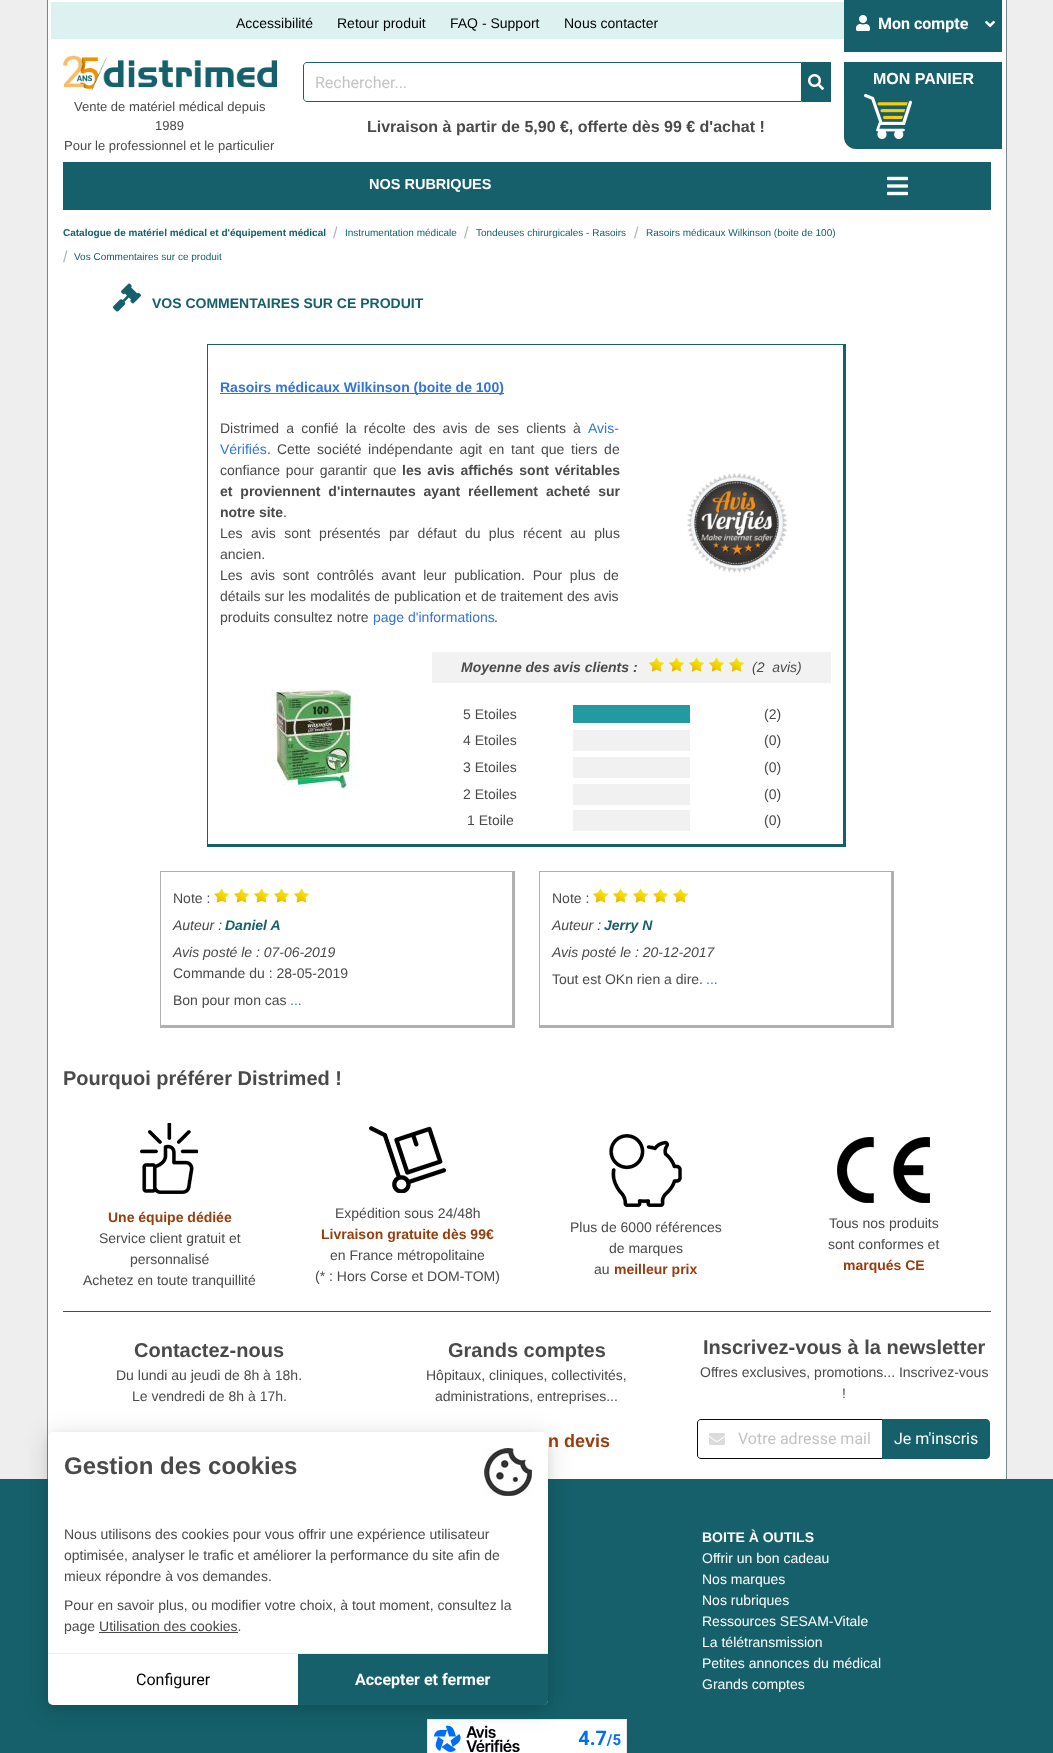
<svg xmlns="http://www.w3.org/2000/svg" width="1053" height="1753" viewBox="0 0 1053 1753">
  <rect width="100%" height="100%" fill="#eee"/>
  <path d="M48 0h958v1479H48z" fill="#fff"/>
  <path d="M1006 0h1v1479H1006z" fill="#77878b"/>
  <path d="M47 0h1v1479H47z" fill="#77878b"/>
  <path d="M51 2h793v37H51z" fill="#ddf1f0"/>
  <path d="M844 0h158v52H844z" fill="#15606a"/>
  <image x="856" y="15" width="14" height="16" href="img/1.png"/>
  <image x="985" y="20" width="10" height="8" href="img/2.png"/>
  <image x="63" y="55" width="214" height="36" href="img/3.png"/>
  <path d="M307 62.5H801.5V101.5H307C305 101.5 303.5 100 303.5 98V66C303.5 64 305 62.5 307 62.5Z" fill="none" stroke="#15606a"/>
  <path d="M802 62h29v40H802z" fill="#15606a"/>
  <image x="808" y="74" width="16" height="16" href="img/4.png"/>
  <path d="M845 63H1001V148H856C850 148 845 143 845 137Z" fill="#15606a" stroke="#15606a" stroke-width="2"/>
  <image x="864" y="94" width="48" height="45" href="img/5.png"/>
  <path d="M63 162h928v48H63z" fill="#15606a"/>
  <image x="887" y="176" width="21" height="20" href="img/6.png"/>
  <image x="113" y="283" width="28" height="29" href="img/7.png"/>
  <path d="M207 344h639v1H207z" fill="#15606a"/>
  <path d="M843 344h3v503H843z" fill="#15606a"/>
  <path d="M207 844h639v3H207z" fill="#15606a"/>
  <path d="M207 344h1v503H207z" fill="#15606a"/>
  <path d="M220 393h284v1H220z" fill="#3273dc"/>
  <image x="687" y="473" width="100" height="100" href="img/8.png"/>
  <image x="264" y="689" width="96" height="100" href="img/9.png"/>
  <path d="M432 652h399v31H432z" fill="#f2f2f2"/>
  <image x="649" y="657" width="95" height="15" href="img/10.png"/>
  <path d="M573 705h117v18H573z" fill="#239aa2"/>
  <path d="M573 730h117v21H573z" fill="#f1f1f1"/>
  <path d="M573 757h117v21H573z" fill="#f1f1f1"/>
  <path d="M573 784h117v21H573z" fill="#f1f1f1"/>
  <path d="M573 810h117v21H573z" fill="#f1f1f1"/>
  <path d="M160 871h355v1H160z" fill="#b1b0b0"/>
  <path d="M512 871h3v157H512z" fill="#b1b0b0"/>
  <path d="M160 1025h355v3H160z" fill="#b1b0b0"/>
  <path d="M160 871h1v157H160z" fill="#b1b0b0"/>
  <image x="214" y="888" width="95" height="15" href="img/11.png"/>
  <path d="M539 871h355v1H539z" fill="#b1b0b0"/>
  <path d="M891 871h3v157H891z" fill="#b1b0b0"/>
  <path d="M539 1025h355v3H539z" fill="#b1b0b0"/>
  <path d="M539 871h1v157H539z" fill="#b1b0b0"/>
  <image x="593" y="888" width="95" height="15" href="img/11.png"/>
  <image x="140" y="1123" width="58" height="71" href="img/12.png"/>
  <image x="369" y="1126" width="77" height="67" href="img/13.png"/>
  <image x="609" y="1134" width="73" height="73" href="img/14.png"/>
  <image x="837" y="1137" width="93" height="66" href="img/15.png"/>
  <path d="M63 1311h928v1H63z" fill="#15606a"/>
  <path d="M701 1419.5H882.5V1458.5H701C699 1458.5 697.5 1457 697.5 1455V1423C697.5 1421 699 1419.5 701 1419.5Z" fill="none" stroke="#0a0a0a"/>
  <image x="709" y="1433" width="16" height="12" href="img/16.png"/>
  <path d="M882 1419H986C988 1419 990 1421 990 1423V1455C990 1457 988 1459 986 1459H882Z" fill="#15606a"/>
  <path d="M0 1479h1053v274H0z" fill="#15606a"/>
  <rect x="48" y="1434" width="500" height="273" rx="5" fill="#0000000d" filter="blur(3px)"/>
  <image x="427" y="1719" width="200" height="34" href="img/18.png"/>
  <rect x="48" y="1436" width="500" height="273" rx="5" fill="#00000026" filter="blur(12px)"/>
  <rect x="48" y="1432" width="500" height="273" rx="5" fill="#fff"/>
  <image x="484" y="1448" width="48" height="48" href="img/17.png"/>
  <path d="M99 1632h139v1H99z" fill="#4a4a4a"/>
  <path d="M48 1653h500v1H48z" fill="#ededed"/>
  <path d="M298 1654H548V1700C548 1703 546 1705 543 1705H298Z" fill="#15606a"/>
  <g font-family="Liberation Sans" font-size="14" fill="#000">
    <text x="236" y="28">Accessibilité</text>
    <text x="337" y="28">Retour produit</text>
    <text x="450" y="28">FAQ - Support</text>
    <text x="564" y="28">Nous contacter</text>
  </g>
  <text x="878" y="29" font-family="Roboto" font-size="16" font-weight="bold" fill="#fff">Mon compte</text>
  <g font-family="Liberation Sans" font-size="13" fill="#4a4a4a">
    <text x="74" y="111">Vente de matériel médical depuis</text>
    <text x="155" y="130">1989</text>
    <text x="64" y="150">Pour le professionnel et le particulier</text>
  </g>
  <text x="315" y="88" font-family="Roboto" font-size="16" fill="#c3c3c3">Rechercher...</text>
  <text x="367" y="132" font-family="Liberation Sans" font-size="16" font-weight="bold" fill="#4a4a4a">Livraison à partir de 5,90 €, offerte dès 99 € d'achat !</text>
  <text x="873" y="84" font-family="Liberation Sans" font-size="16" font-weight="bold" fill="#fff">MON PANIER</text>
  <text x="369" y="189" font-family="Liberation Sans" font-size="14.5" font-weight="bold" fill="#fff">NOS RUBRIQUES</text>
  <text x="63" y="236" font-family="Liberation Sans" font-size="10" font-weight="bold" fill="#15606a">Catalogue de matériel médical et d'équipement médical</text>
  <text x="333" y="238" font-family="Liberation Sans" font-size="16" fill="#b5b5b5">/</text>
  <text x="345" y="236" font-family="Liberation Sans" font-size="10" fill="#15606a">Instrumentation médicale</text>
  <text x="464" y="238" font-family="Liberation Sans" font-size="16" fill="#b5b5b5">/</text>
  <text x="476" y="236" font-family="Liberation Sans" font-size="10" fill="#15606a">Tondeuses chirurgicales - Rasoirs</text>
  <text x="634" y="238" font-family="Liberation Sans" font-size="16" fill="#b5b5b5">/</text>
  <text x="646" y="236" font-family="Liberation Sans" font-size="10" fill="#15606a">Rasoirs médicaux Wilkinson (boite de 100)</text>
  <text x="63" y="262" font-family="Liberation Sans" font-size="16" fill="#b5b5b5">/</text>
  <text x="74" y="260" font-family="Liberation Sans" font-size="10" fill="#15606a">Vos Commentaires sur ce produit</text>
  <text x="152" y="308" font-family="Liberation Sans" font-size="14" font-weight="bold" fill="#15606a">VOS COMMENTAIRES SUR CE PRODUIT</text>
  <text x="220" y="392" font-family="Liberation Sans" font-size="14" font-weight="bold" fill="#3273dc">Rasoirs médicaux Wilkinson (boite de 100)</text>
  <text x="220" y="433" word-spacing="3.25" font-family="Liberation Sans" font-size="14" fill="#4a4a4a">Distrimed a confié la récolte des avis de ses clients à</text>
  <g font-family="Liberation Sans" font-size="14" fill="#3273dc">
    <text x="588" y="433">Avis-</text>
    <text x="220" y="454">Vérifiés</text>
  </g>
  <g font-family="Liberation Sans" font-size="14" fill="#4a4a4a">
    <text x="267" y="454">.</text>
    <text x="277" y="454" word-spacing="2.75">Cette société indépendante agit en tant que tiers de</text>
    <text x="220" y="475" word-spacing="2">confiance pour garantir que</text>
  </g>
  <g font-family="Liberation Sans" font-size="14" font-weight="bold" fill="#4a4a4a">
    <text x="402" y="475" word-spacing="2">les avis affichés sont véritables</text>
    <text x="220" y="496" word-spacing="4">et proviennent d'internautes ayant</text>
    <text x="468" y="496" word-spacing="4">réellement acheté sur</text>
    <text x="220" y="517">notre site</text>
  </g>
  <g font-family="Liberation Sans" font-size="14" fill="#4a4a4a">
    <text x="283" y="517">.</text>
    <text x="220" y="538" word-spacing="4.5">Les avis sont présentés par défaut du plus récent au plus</text>
    <text x="220" y="559">ancien.</text>
    <text x="220" y="580" word-spacing="3.75">Les avis sont contrôlés avant leur publication. Pour plus de</text>
    <text x="220" y="601" word-spacing="0.25">détails sur les modalités de publication et de traitement des avis</text>
    <text x="220" y="622">produits consultez notre</text>
  </g>
  <text x="373" y="622" font-family="Liberation Sans" font-size="14" fill="#3273dc">page d'informations</text>
  <text x="494" y="622" font-family="Liberation Sans" font-size="14" fill="#4a4a4a">.</text>
  <text x="461" y="672" font-family="Liberation Sans" font-size="14" font-weight="bold" font-style="italic" fill="#4a4a4a">Moyenne des avis clients :</text>
  <text x="752" y="672" font-family="Liberation Sans" font-size="14" font-style="italic" fill="#4a4a4a" xml:space="preserve">(2  avis)</text>
  <g font-family="Liberation Sans" font-size="14" fill="#4a4a4a">
    <text x="463" y="719">5 Etoiles</text>
    <text x="764" y="719">(2)</text>
    <text x="463" y="745">4 Etoiles</text>
    <text x="764" y="745">(0)</text>
    <text x="463" y="772">3 Etoiles</text>
    <text x="764" y="772">(0)</text>
    <text x="463" y="799">2 Etoiles</text>
    <text x="764" y="799">(0)</text>
    <text x="467" y="825">1 Etoile</text>
    <text x="764" y="825">(0)</text>
    <text x="173" y="903">Note :</text>
  </g>
  <text x="173" y="930" font-family="Liberation Sans" font-size="14" font-style="italic" fill="#4a4a4a">Auteur :</text>
  <text x="225" y="930" font-family="Liberation Sans" font-size="14" font-weight="bold" font-style="italic" fill="#15606a">Daniel A</text>
  <text x="173" y="957" font-family="Liberation Sans" font-size="14" font-style="italic" fill="#4a4a4a">Avis posté le : 07-06-2019</text>
  <g font-family="Liberation Sans" font-size="14" fill="#4a4a4a">
    <text x="173" y="978">Commande du : 28-05-2019</text>
    <text x="173" y="1005">Bon pour mon cas</text>
  </g>
  <text x="290" y="1005" font-family="Liberation Sans" font-size="14" fill="#3273dc">...</text>
  <text x="552" y="903" font-family="Liberation Sans" font-size="14" fill="#4a4a4a">Note :</text>
  <text x="552" y="930" font-family="Liberation Sans" font-size="14" font-style="italic" fill="#4a4a4a">Auteur :</text>
  <text x="604" y="930" font-family="Liberation Sans" font-size="14" font-weight="bold" font-style="italic" fill="#15606a">Jerry N</text>
  <text x="552" y="957" font-family="Liberation Sans" font-size="14" font-style="italic" fill="#4a4a4a">Avis posté le : 20-12-2017</text>
  <text x="552" y="984" font-family="Liberation Sans" font-size="14" fill="#4a4a4a">Tout est OKn rien a dire.</text>
  <text x="706" y="984" font-family="Liberation Sans" font-size="14" fill="#3273dc">...</text>
  <text x="63" y="1085" font-family="Liberation Sans" font-size="20" font-weight="bold" fill="#4a4a4a">Pourquoi préférer Distrimed !</text>
  <text x="108" y="1222" font-family="Liberation Sans" font-size="14" font-weight="bold" fill="#973d0e">Une équipe dédiée</text>
  <g font-family="Liberation Sans" font-size="14" fill="#4a4a4a">
    <text x="99" y="1243">Service client gratuit et</text>
    <text x="130" y="1264">personnalisé</text>
    <text x="83" y="1285">Achetez en toute tranquillité</text>
    <text x="335" y="1218">Expédition sous 24/48h</text>
  </g>
  <text x="321" y="1239" font-family="Liberation Sans" font-size="14" font-weight="bold" fill="#973d0e">Livraison gratuite dès 99€</text>
  <g font-family="Liberation Sans" font-size="14" fill="#4a4a4a">
    <text x="330" y="1260">en France métropolitaine</text>
    <text x="315" y="1281">(* : Hors Corse et DOM-TOM)</text>
    <text x="570" y="1232">Plus de 6000 références</text>
    <text x="609" y="1253">de marques</text>
    <text x="594" y="1274">au</text>
  </g>
  <text x="614" y="1274" font-family="Liberation Sans" font-size="14" font-weight="bold" fill="#973d0e">meilleur prix</text>
  <g font-family="Liberation Sans" font-size="14" fill="#4a4a4a">
    <text x="829" y="1228">Tous nos produits</text>
    <text x="828" y="1249">sont conformes et</text>
  </g>
  <text x="843" y="1270" font-family="Liberation Sans" font-size="14" font-weight="bold" fill="#973d0e">marqués CE</text>
  <text x="134" y="1357" font-family="Liberation Sans" font-size="20" font-weight="bold" fill="#4a4a4a">Contactez-nous</text>
  <g font-family="Liberation Sans" font-size="14" fill="#4a4a4a">
    <text x="116" y="1380">Du lundi au jeudi de 8h à 18h.</text>
    <text x="132" y="1401">Le vendredi de 8h à 17h.</text>
  </g>
  <text x="448" y="1357" font-family="Liberation Sans" font-size="20" font-weight="bold" fill="#4a4a4a">Grands comptes</text>
  <g font-family="Liberation Sans" font-size="14" fill="#4a4a4a">
    <text x="426" y="1380">Hôpitaux, cliniques, collectivités,</text>
    <text x="435" y="1401">administrations, entreprises...</text>
  </g>
  <text x="548" y="1447" font-family="Liberation Sans" font-size="18" font-weight="bold" fill="#973d0e">n devis</text>
  <text x="703" y="1354" font-family="Liberation Sans" font-size="20" font-weight="bold" fill="#4a4a4a">Inscrivez-vous à la newsletter</text>
  <g font-family="Liberation Sans" font-size="14" fill="#4a4a4a">
    <text x="700" y="1377">Offres exclusives, promotions... Inscrivez-vous</text>
    <text x="842" y="1398">!</text>
  </g>
  <text x="738" y="1444" font-family="Roboto" font-size="16" fill="#c3c3c3">Votre adresse mail</text>
  <text x="894" y="1444" font-family="Roboto" font-size="16" fill="#fff">Je m'inscris</text>
  <text x="64" y="1474" font-family="Liberation Sans" font-size="24" font-weight="bold" fill="#4a4a4a">Gestion des cookies</text>
  <g font-family="Liberation Sans" font-size="14" fill="#4a4a4a">
    <text x="64" y="1539">Nous utilisons des cookies pour vous offrir une expérience utilisateur</text>
    <text x="64" y="1560">optimisée, analyser le trafic et améliorer la performance du site afin de</text>
    <text x="64" y="1581">mieux répondre à vos demandes.</text>
    <text x="64" y="1610">Pour en savoir plus, ou modifier votre choix, à tout moment, consultez la</text>
    <text x="64" y="1631">page Utilisation des cookies.</text>
  </g>
  <text x="136" y="1685" font-family="Roboto" font-size="16" fill="#000">Configurer</text>
  <text x="355" y="1685" font-family="Roboto" font-size="16" font-weight="bold" fill="#fff">Accepter et fermer</text>
  <text x="702" y="1542" font-family="Liberation Sans" font-size="14" font-weight="bold" fill="#fff">BOITE À OUTILS</text>
  <g font-family="Liberation Sans" font-size="14" fill="#fff">
    <text x="702" y="1563">Offrir un bon cadeau</text>
    <text x="702" y="1584">Nos marques</text>
    <text x="702" y="1605">Nos rubriques</text>
    <text x="702" y="1626">Ressources SESAM-Vitale</text>
    <text x="702" y="1647">La télétransmission</text>
    <text x="702" y="1668">Petites annonces du médical</text>
    <text x="702" y="1689">Grands comptes</text>
  </g>
</svg>
